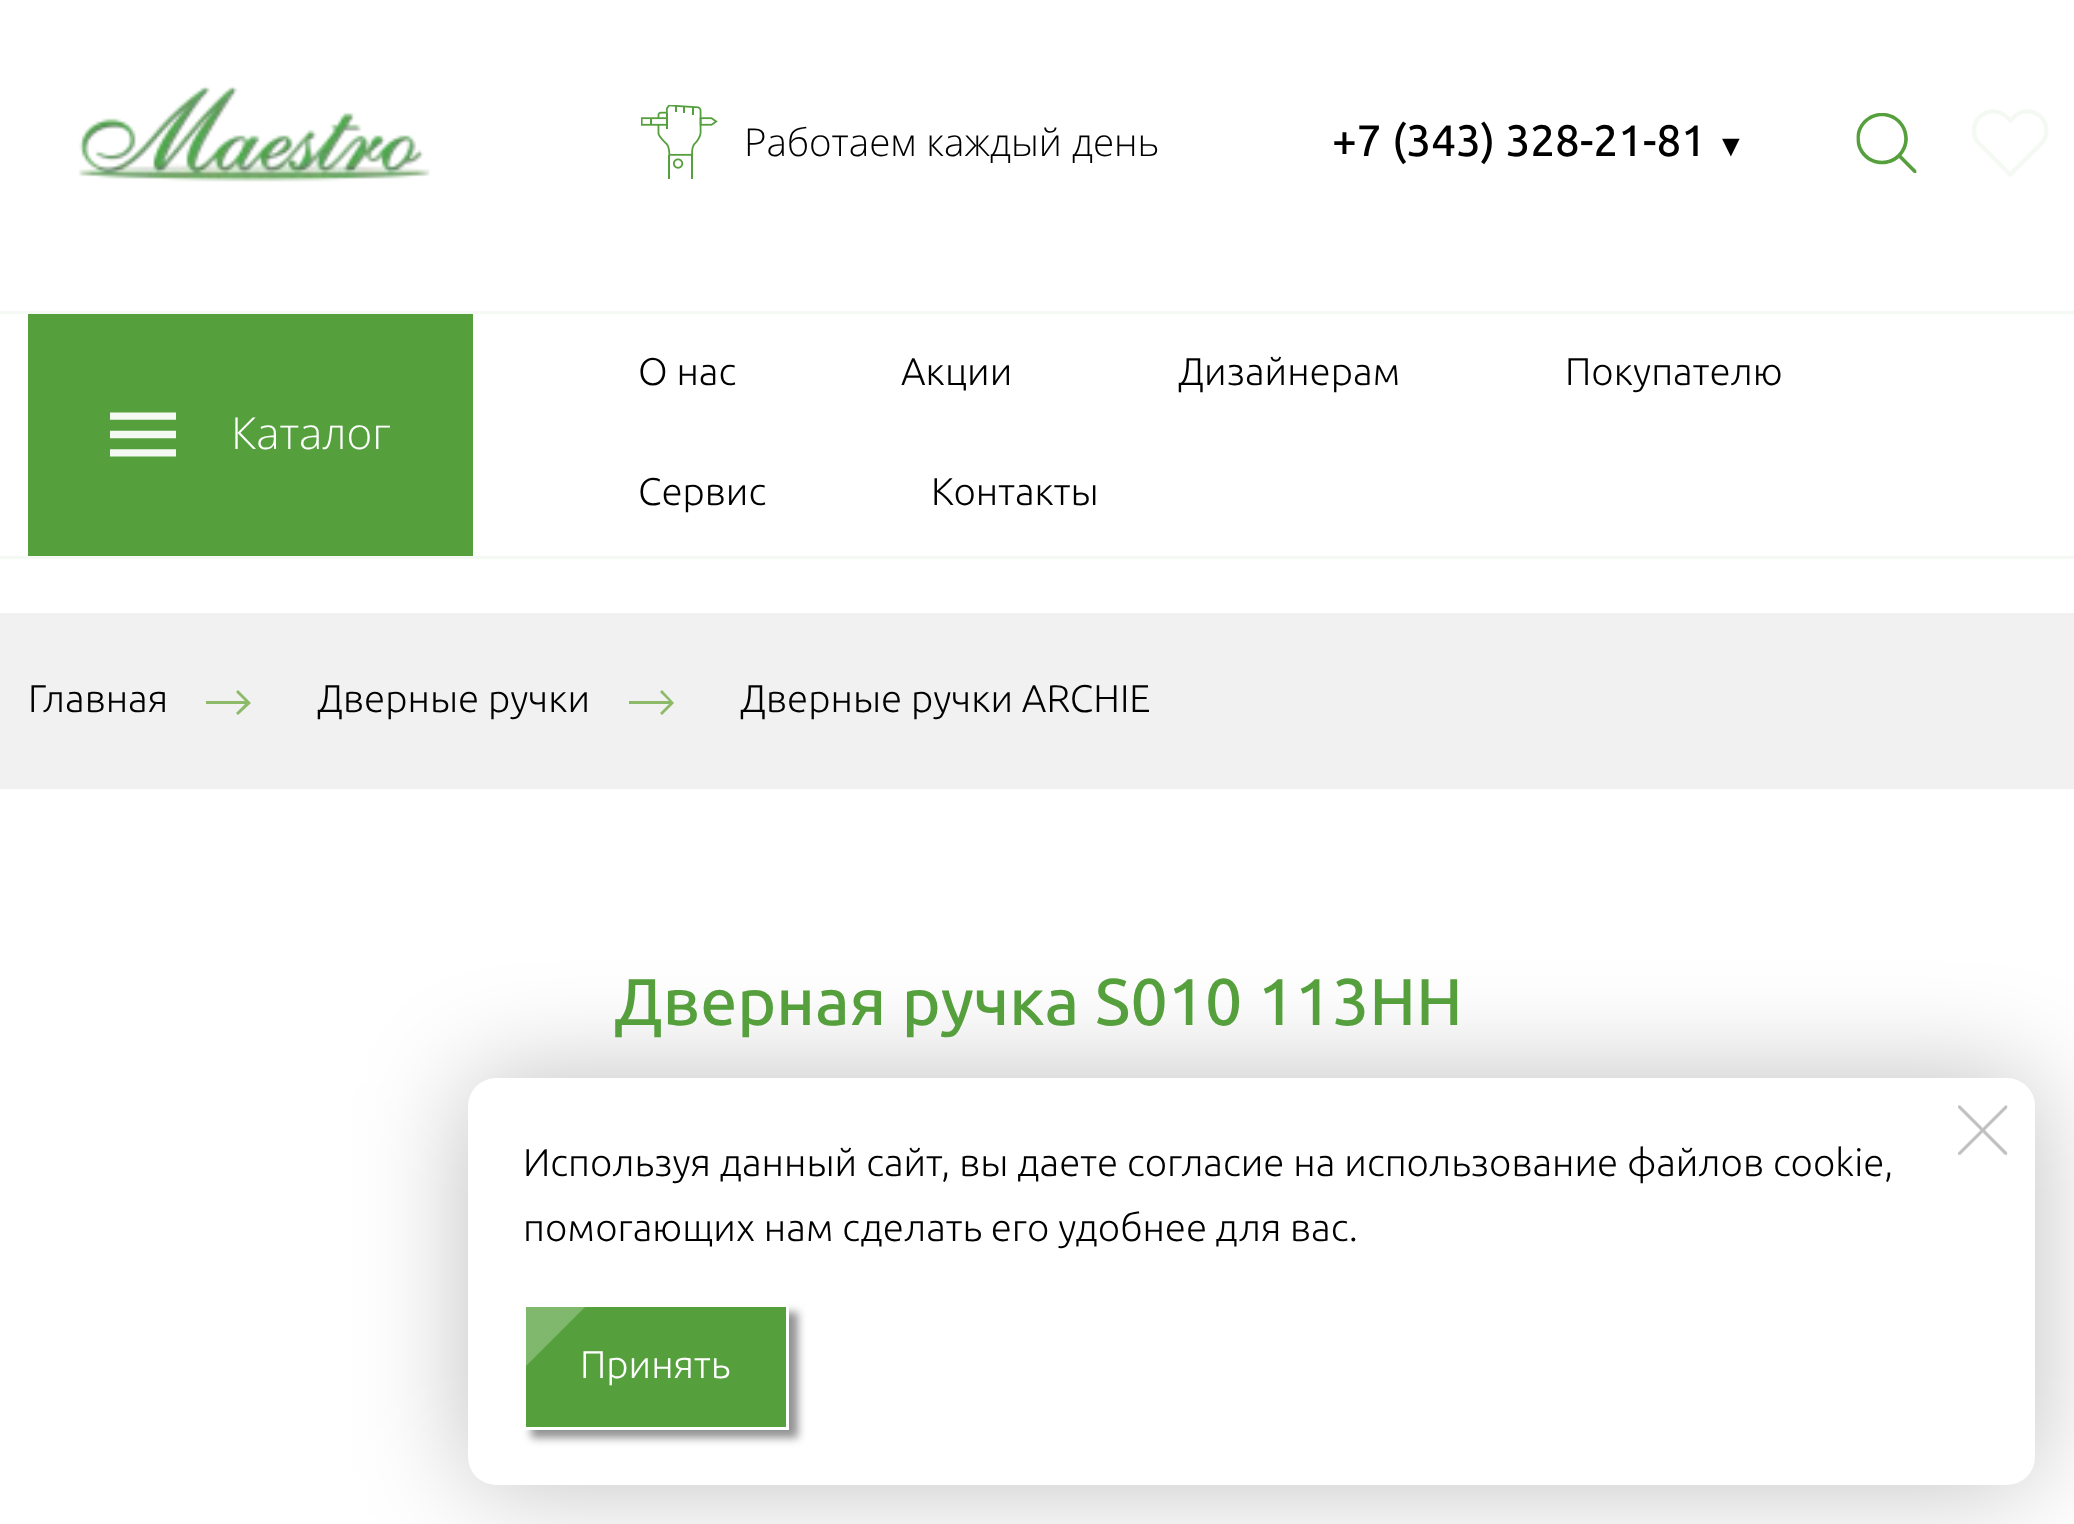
<svg xmlns="http://www.w3.org/2000/svg" width="2074" height="1524" viewBox="0 0 2074 1524">
  <defs>
    <clipPath id="clip1"><path d="M525 1306h262v121H525z"/></clipPath>
    <linearGradient id="g1" gradientUnits="userSpaceOnUse" x1="401" y1="1367" x2="525" y2="1367"><stop offset="0" stop-color="#fff" stop-opacity="0.1"/><stop offset="1" stop-color="#fff" stop-opacity="0.25"/></linearGradient>
  </defs>
  <rect width="100%" height="100%" fill="#fff"/>
  <image x="79" y="85" width="351" height="97" href="img/1.png"/>
  <image x="641" y="105" width="77" height="74" href="img/2.png"/>
  <image x="1856" y="113" width="61" height="60" href="img/3.png"/>
  <image x="1972" y="109" width="77" height="68" href="img/4.png"/>
  <path d="M0 311h2074v3H0z" fill="#f5f9f3"/>
  <path d="M0 556h2074v3H0z" fill="#f5f9f3"/>
  <path d="M28 314h445v242H28z" fill="#55a03d"/>
  <image x="110" y="412" width="66" height="45" href="img/5.png"/>
  <rect x="468" y="1078" width="1567" height="407" rx="28" fill="#00000040" filter="blur(55px)"/>
  <rect x="468" y="1078" width="1567" height="407" rx="28" fill="#fff"/>
  <image x="1958" y="1105" width="50" height="51" href="img/6.png"/>
  <path d="M531 1312h267v126H531z" fill="#939393" filter="blur(4px)"/>
  <path d="M524.5 1305.5h263v123H524.5z" fill="#55a03d" stroke="#fff" stroke-width="3"/>
  <g clip-path="url(#clip1)">
    <path d="M462 1307H585L465 1427H341Z" fill="url(#g1)"/>
  </g>
  <path d="M0 613h2074v176H0z" fill="#f1f1f1"/>
  <path d="M238 690L236 692L245 701H206V704H245L236 713L238 715L251 703L238 690" fill="#8dba69"/>
  <path d="M662 690L660 692L669 701H629V704H669L660 713L662 715L674 703L662 690" fill="#8dba69"/>
  <text x="744" y="156" font-family="Open Sans" font-size="38.5" font-weight="300" fill="#000">Работаем каждый день</text>
  <text x="1332" y="156" font-family="Ubuntu" font-size="44" font-weight="500" fill="#000">+7 (343) 328-21-81</text>
  <text x="1716" y="156" font-family="Liberation Sans" font-size="30" fill="#000">▼</text>
  <text x="231" y="449" font-family="Open Sans" font-size="44" font-weight="300" fill="#fff">Каталог</text>
  <g font-family="Ubuntu" font-size="38.5" font-weight="300" fill="#000">
    <text x="638" y="385">О нас</text>
    <text x="901" y="385">Акции</text>
    <text x="1178" y="385">Дизайнерам</text>
    <text x="1565" y="385">Покупателю</text>
    <text x="638" y="505">Сервис</text>
    <text x="931" y="505">Контакты</text>
    <text x="523" y="1176" word-spacing="0.25">Используя данный сайт, вы даете согласие на использование файлов cookie,</text>
    <text x="523" y="1241">помогающих нам сделать его удобнее для вас.</text>
  </g>
  <text x="580" y="1378" font-family="Ubuntu" font-size="38.5" font-weight="300" fill="#fff">Принять</text>
  <g font-family="Ubuntu" font-size="38.5" font-weight="300" fill="#000">
    <text x="28" y="712">Главная</text>
    <text x="317" y="712">Дверные ручки</text>
    <text x="740" y="712">Дверные ручки ARCHIE</text>
  </g>
  <text x="614" y="1025" font-family="Ubuntu" font-size="66" font-weight="500" fill="#55a03d">Дверная ручка S010 113HH</text>
</svg>
